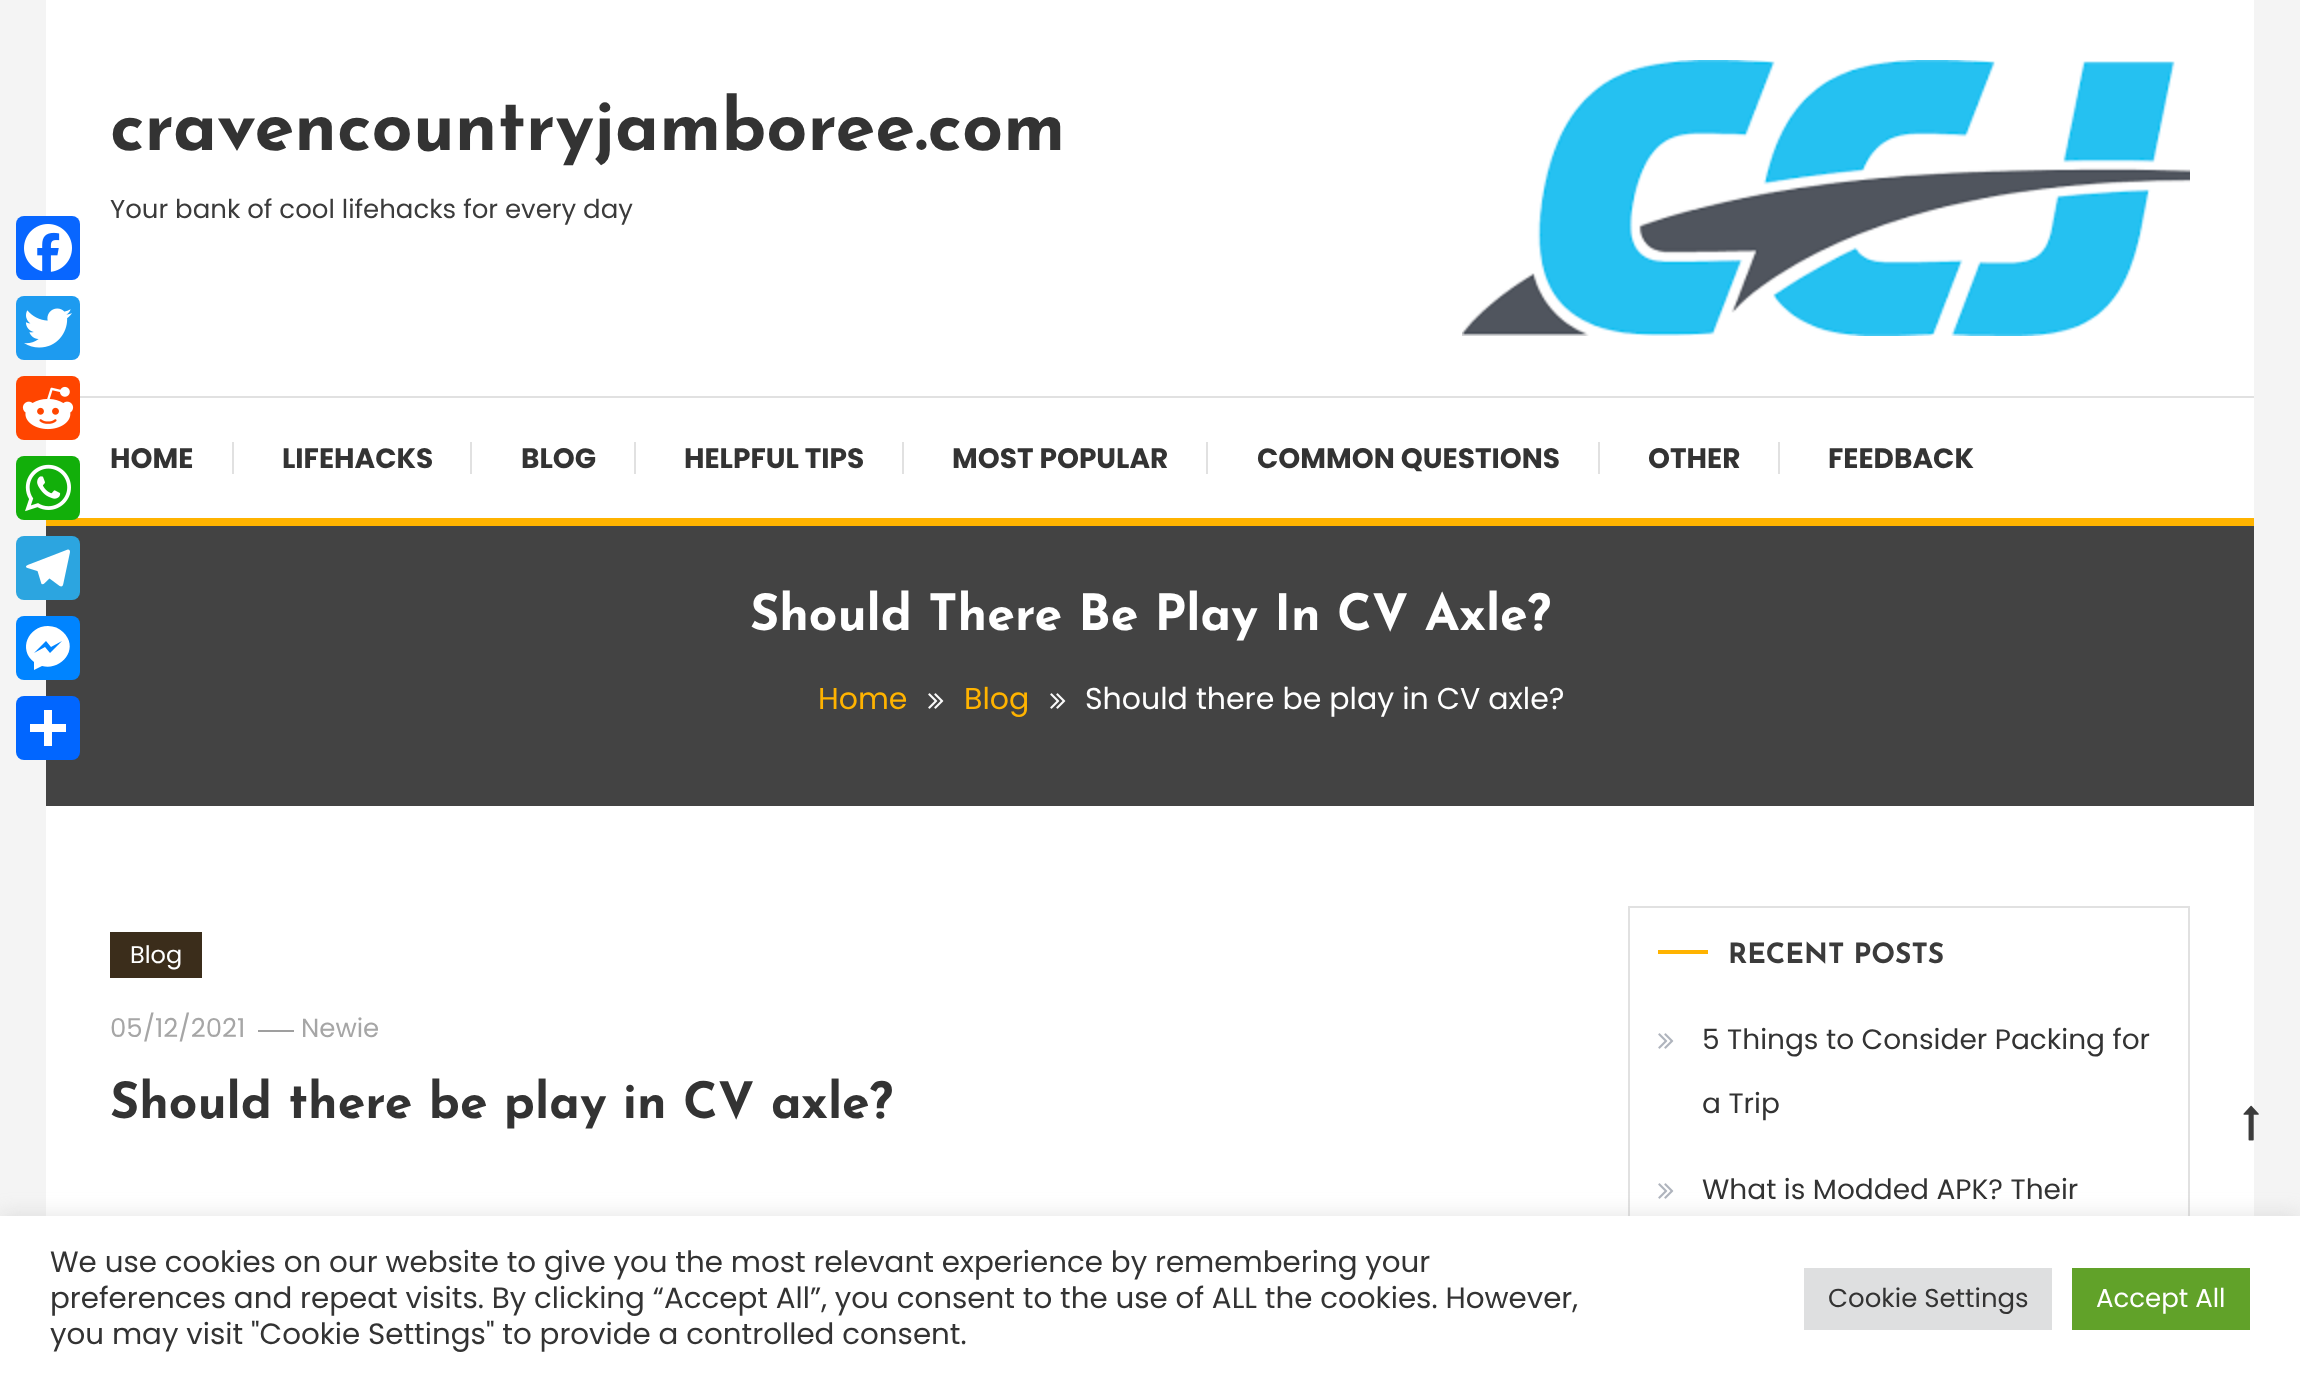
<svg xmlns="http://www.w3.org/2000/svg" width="2300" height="1380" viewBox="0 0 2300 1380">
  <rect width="100%" height="100%" fill="#f4f4f4"/>
  <path d="M46 0h2208v1216H46z" fill="#fff"/>
  <rect x="16" y="216" width="64" height="64" rx="8" fill="#0866ff"/>
  <image x="24" y="224" width="48" height="48" href="img/1.png"/>
  <rect x="16" y="296" width="64" height="64" rx="8" fill="#1d9bf0"/>
  <image x="24" y="308" width="48" height="40" href="img/2.png"/>
  <rect x="16" y="376" width="64" height="64" rx="8" fill="#ff4500"/>
  <image x="22" y="386" width="52" height="44" href="img/3.png"/>
  <path d="M46 518h2208v8H46z" fill="#ffb300"/>
  <rect x="16" y="456" width="64" height="64" rx="8" fill="#12af0a"/>
  <image x="25" y="464" width="46" height="48" href="img/4.png"/>
  <path d="M46 526h2208v280H46z" fill="#434343"/>
  <rect x="16" y="536" width="64" height="64" rx="8" fill="#2ca5e0"/>
  <image x="26" y="549" width="44" height="38" href="img/5.png"/>
  <rect x="16" y="616" width="64" height="64" rx="8" fill="#0084ff"/>
  <path d="M48 626C28 626 18 650 34 662V670L42 666C62 671 80 648 63 632C59 628 54 626 48 626M50 653L45 647L34 653L46 641L51 647L62 641Z" fill="#fff"/>
  <rect x="16" y="696" width="64" height="64" rx="8" fill="#0166ff"/>
  <path d="M44 710h8v36H44z" fill="#fff"/>
  <path d="M30 724h36v8H30z" fill="#fff"/>
  <image x="1462" y="60" width="728" height="276" href="img/6.png"/>
  <path d="M80 396h2174v2H80z" fill="#e1e1e1"/>
  <path d="M232 442h2v32H232z" fill="#e1e1e1"/>
  <path d="M470 442h2v32H470z" fill="#e1e1e1"/>
  <path d="M634 442h2v32H634z" fill="#e1e1e1"/>
  <path d="M902 442h2v32H902z" fill="#e1e1e1"/>
  <path d="M1206 442h2v32H1206z" fill="#e1e1e1"/>
  <path d="M1598 442h2v32H1598z" fill="#e1e1e1"/>
  <path d="M1778 442h2v32H1778z" fill="#e1e1e1"/>
  <image x="928" y="693" width="16" height="16" href="img/7.png"/>
  <image x="1050" y="693" width="16" height="16" href="img/7.png"/>
  <path d="M110 932h92v46H110z" fill="#3b2d1b"/>
  <path d="M258 1030h36v2H258z" fill="#9f9f9f"/>
  <path d="M1629 907h560v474H1629z" fill="none" stroke="#e1e1e1" stroke-width="2"/>
  <path d="M1658 950h50v4H1658z" fill="#ffb300"/>
  <image x="1658" y="1033" width="16" height="16" href="img/8.png"/>
  <image x="1658" y="1183" width="16" height="16" href="img/8.png"/>
  <image x="2243" y="1105" width="16" height="36" href="img/9.png"/>
  <path d="M0 1214h2300v164H0z" fill="#acabab4d" filter="blur(10px)"/>
  <path d="M0 1216h2300v164H0z" fill="#fff"/>
  <path d="M1804 1268h248v62H1804z" fill="#dedfe0"/>
  <path d="M2072 1268h178v62H2072z" fill="#61a229"/>
  <text x="110" y="150" font-family="Josefin Sans" font-size="72" font-weight="bold" fill="#333">cravencountryjamboree.com</text>
  <text x="110" y="218" font-family="Poppins" font-size="26" fill="#3b3b3b">Your bank of cool lifehacks for every day</text>
  <g font-family="Poppins" font-size="28" font-weight="bold" fill="#333">
    <text x="110" y="468">HOME</text>
    <text x="282" y="468">LIFEHACKS</text>
    <text x="521" y="468">BLOG</text>
    <text x="684" y="468">HELPFUL TIPS</text>
    <text x="952" y="468">MOST POPULAR</text>
    <text x="1257" y="468">COMMON QUESTIONS</text>
    <text x="1648" y="468">OTHER</text>
    <text x="1828" y="468">FEEDBACK</text>
  </g>
  <text x="750" y="630" font-family="Josefin Sans" font-size="50" font-weight="bold" fill="#fff">Should There Be Play In CV Axle?</text>
  <g font-family="Poppins" font-size="30" fill="#ffb300">
    <text x="818" y="709">Home</text>
    <text x="964" y="709">Blog</text>
  </g>
  <text x="1085" y="709" font-family="Poppins" font-size="30" fill="#fff">Should there be play in CV axle?</text>
  <text x="130" y="963" font-family="Poppins" font-size="24" fill="#fff">Blog</text>
  <g font-family="Poppins" font-size="26" fill="#a6a6a6">
    <text x="110" y="1037">05/12/2021</text>
    <text x="301" y="1037">Newie</text>
  </g>
  <text x="110" y="1118" font-family="Josefin Sans" font-size="50" font-weight="bold" fill="#333">Should there be play in CV axle?</text>
  <text x="1728" y="963" font-family="Josefin Sans" font-size="28" font-weight="bold" fill="#3b3b3b">RECENT POSTS</text>
  <g font-family="Poppins" font-size="28" fill="#333">
    <text x="1702" y="1049">5 Things to Consider Packing for</text>
    <text x="1702" y="1113">a Trip</text>
    <text x="1702" y="1199">What is Modded APK? Their</text>
  </g>
  <g font-family="Poppins" font-size="29.33" fill="#333">
    <text x="50" y="1272">We use cookies on our website to give you the most relevant experience by remembering your</text>
    <text x="50" y="1308">preferences and repeat visits. By clicking “Accept All”, you consent to the use of ALL the cookies. However,</text>
    <text x="50" y="1344">you may visit "Cookie Settings" to provide a controlled consent.</text>
  </g>
  <text x="1828" y="1307" font-family="Poppins" font-size="26" fill="#333">Cookie Settings</text>
  <text x="2096" y="1307" font-family="Poppins" font-size="26" fill="#fff">Accept All</text>
</svg>
